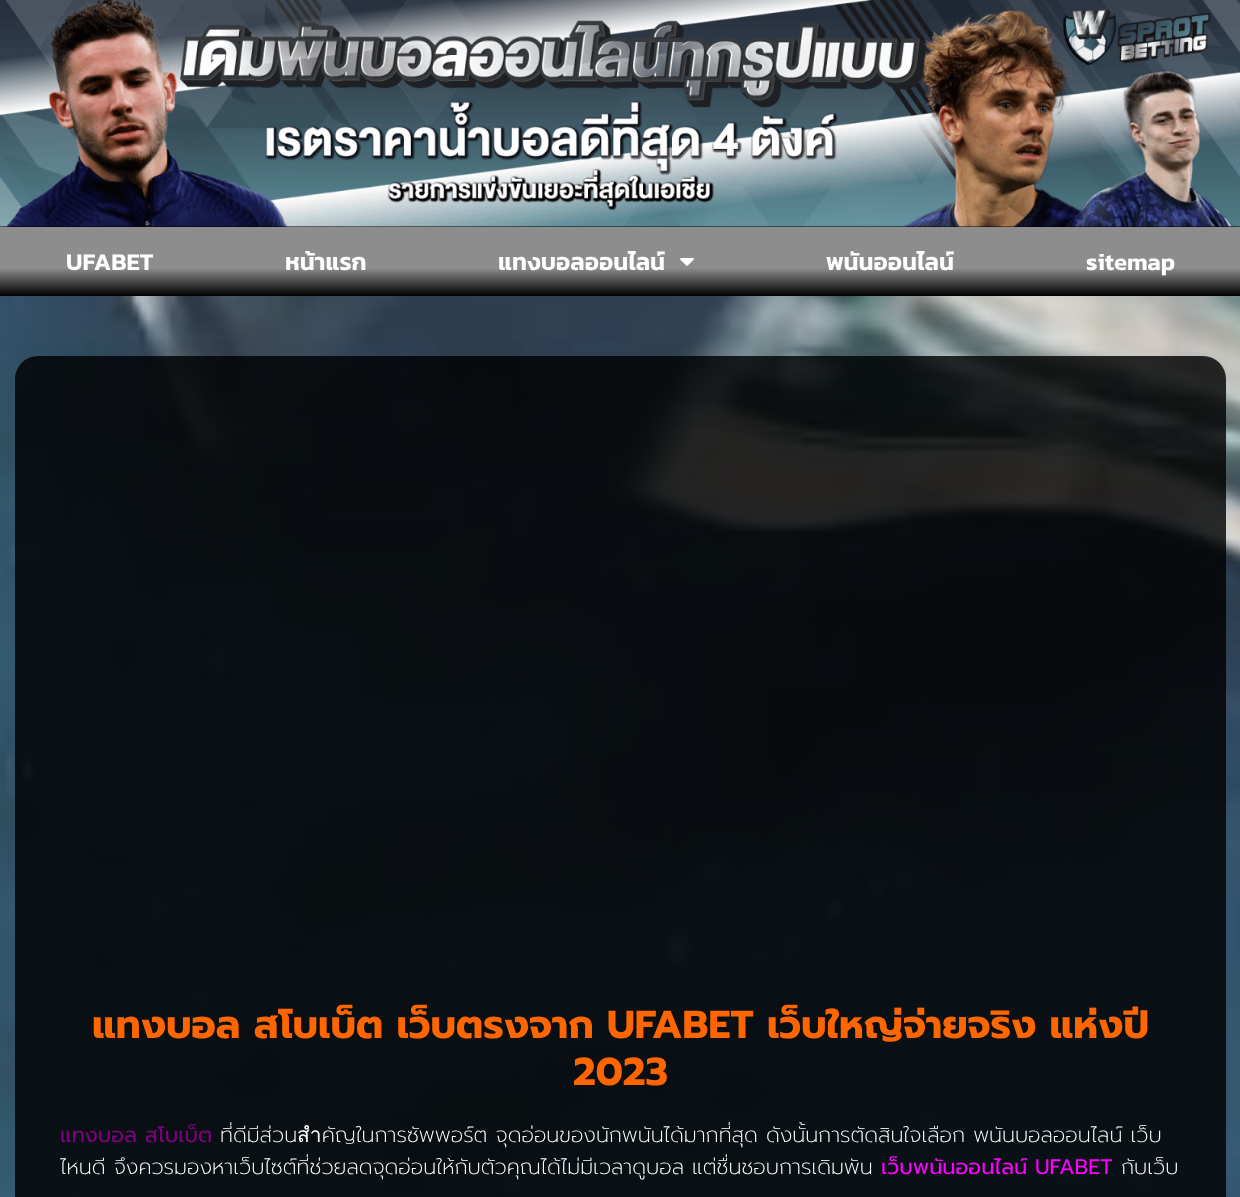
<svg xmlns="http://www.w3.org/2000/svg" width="1240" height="1197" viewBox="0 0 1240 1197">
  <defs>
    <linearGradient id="g1" gradientUnits="userSpaceOnUse" x1="620" y1="226" x2="620" y2="296"><stop offset="0.6" stop-color="#8d8d8d"/><stop offset="1" stop-color="#000"/></linearGradient>
  </defs>
  <rect width="100%" height="100%" fill="#fff"/>
  <image x="0" y="296" width="1240" height="901" href="img/1.png"/>
  <path d="M0 226h1240v1H0z" fill="#000"/>
  <image x="0" y="0" width="1240" height="227" href="img/2.png"/>
  <path d="M0 227h1240v69H0z" fill="url(#g1)"/>
  <image x="680" y="258" width="14" height="8" href="img/3.png"/>
  <rect x="15" y="356" width="1211" height="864" rx="23" fill="#000000cf"/>
  <g font-family="Kanit" font-size="24" font-weight="600" fill="#fff">
    <text x="66" y="270">UFABET</text>
    <text x="285" y="270">หน้าแรก</text>
    <text x="498" y="270">แทงบอลออนไลน์</text>
    <text x="826" y="270">พนันออนไลน์</text>
    <text x="1086" y="270">sitemap</text>
  </g>
  <g font-family="Prompt" font-size="39" font-weight="bold" fill="#f60">
    <text x="92" y="1038">แทงบอล สโบเบ็ต เว็บตรงจาก UFABET เว็บใหญ่จ่ายจริง แห่งปี</text>
    <text x="573" y="1085">2023</text>
  </g>
  <text x="60" y="1142" font-family="Prompt" font-size="21" fill="#800080">แทงบอล สโบเบ็ต</text>
  <g font-family="Prompt" font-size="21" font-weight="200" fill="#fff">
    <text x="220" y="1142">ที่ดีมีส่วนสำคัญในการซัพพอร์ต จุดอ่อนของนักพนันได้มากที่สุด ดังนั้นการตัดสินใจเลือก พนันบอลออนไลน์ เว็บ</text>
    <text x="60" y="1174">ไหนดี จึงควรมองหาเว็บไซต์ที่ช่วยลดจุดอ่อนให้กับตัวคุณได้ไม่มีเวลาดูบอล แต่ชื่นชอบการเดิมพัน</text>
  </g>
  <text x="881" y="1174" font-family="Prompt" font-size="21" fill="#f0f">เว็บพนันออนไลน์ UFABET</text>
  <text x="1121" y="1174" font-family="Prompt" font-size="21" font-weight="200" fill="#fff">กับเว็บ</text>
</svg>
